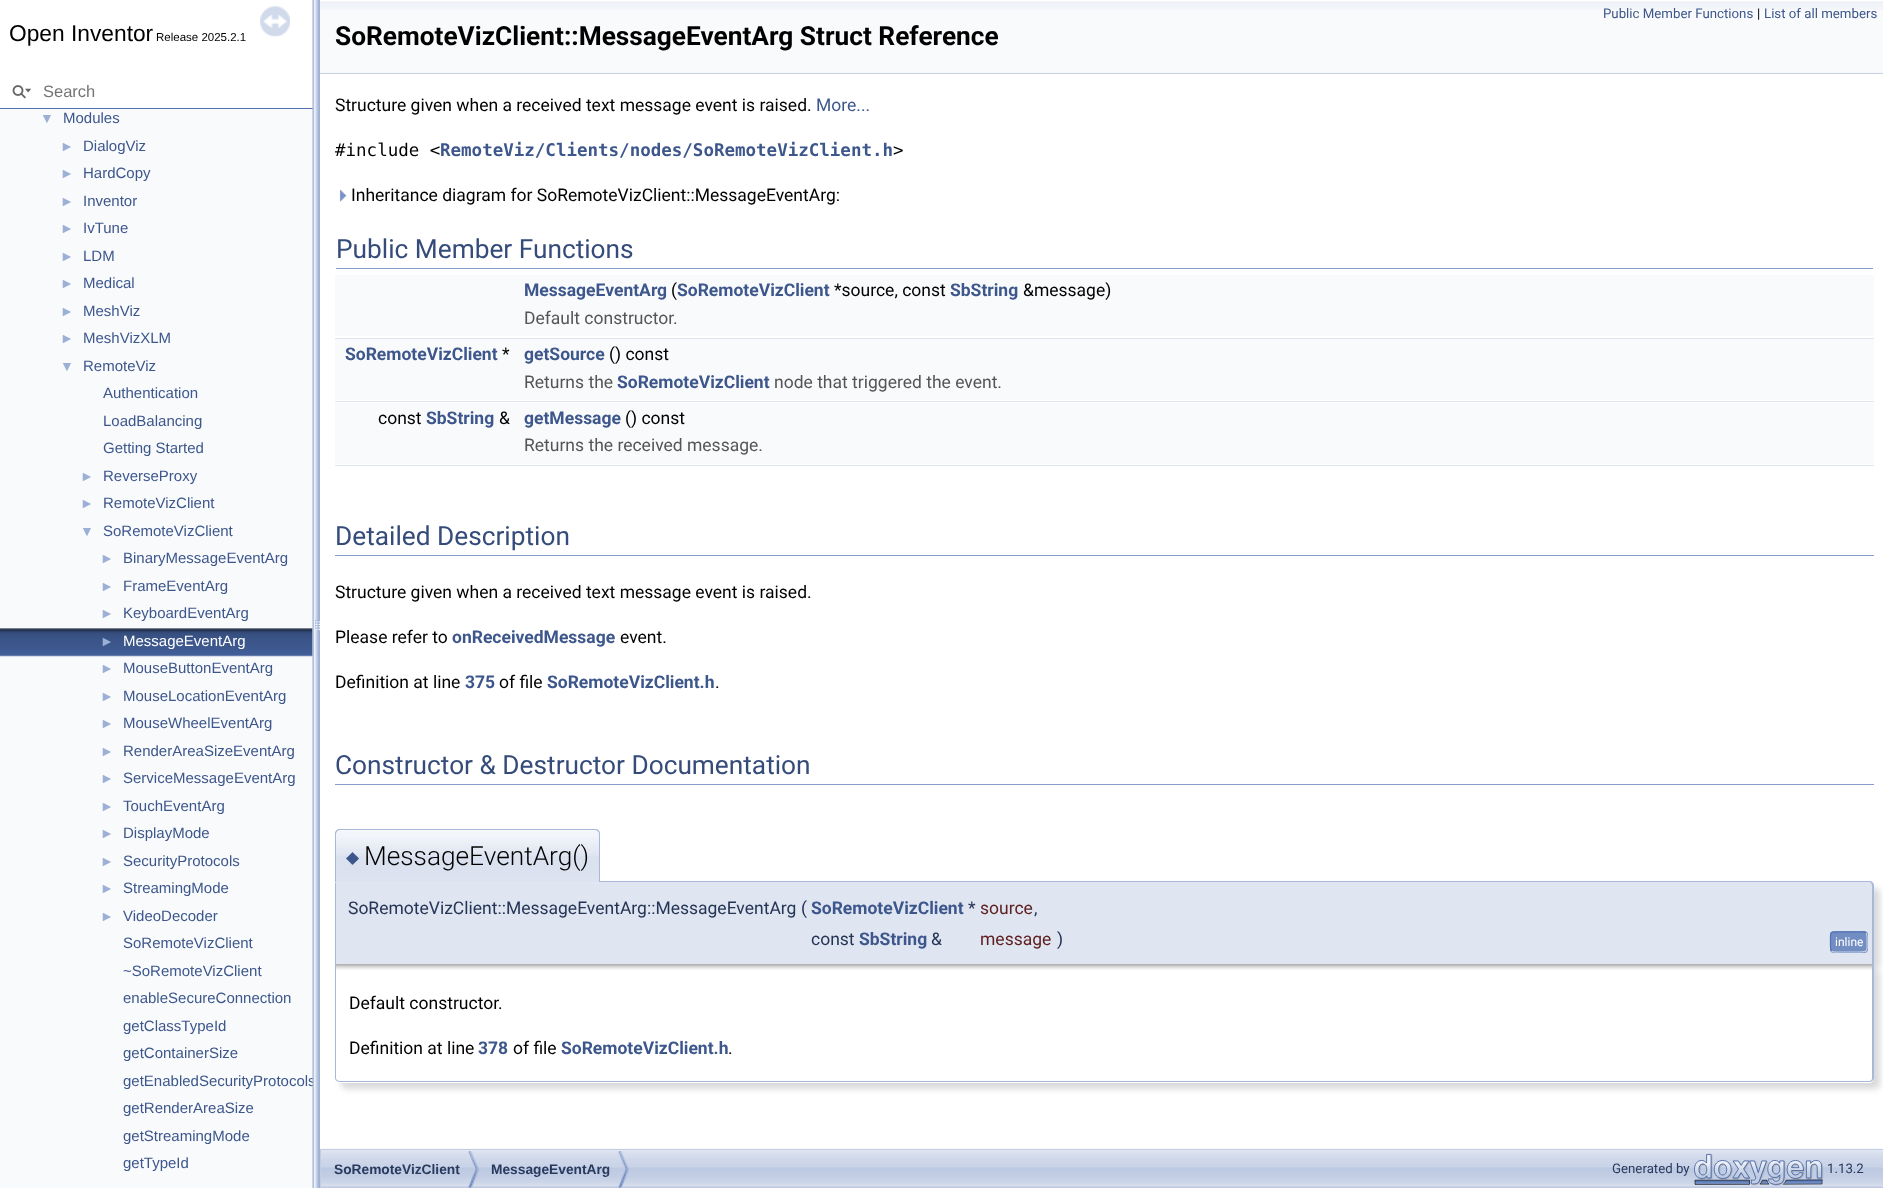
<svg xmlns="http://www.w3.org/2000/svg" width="1883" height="1188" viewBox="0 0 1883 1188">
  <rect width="100%" height="100%" fill="#fff"/>
  <path d="M0 108h313v1H0z" fill="#5373b4"/>
  <image x="12" y="85" width="20" height="14" href="img/1.png"/>
  <path d="M0 109h313v1079H0z" fill="#f9fafc"/>
  <image x="260" y="6" width="30" height="31" href="img/3.png"/>
  <image x="0" y="628" width="313" height="29" href="img/4.png"/>
  <path d="M320 10h1563v63H320z" fill="#f9fafc"/>
  <image x="320" y="0" width="1563" height="10" href="img/5.png"/>
  <path d="M320 73h1563v1H320z" fill="#c4cfe5"/>
  <image x="339" y="190" width="8" height="12" href="img/6.png"/>
  <path d="M336 268h1537v1H336z" fill="#879ecb"/>
  <path d="M335 275h1539v29H335z" fill="#f9fafc"/>
  <path d="M335 304h1539v32H335z" fill="#f9fafc"/>
  <path d="M335 338h1539v1H335z" fill="#dee4f0"/>
  <path d="M335 339h1539v29H335z" fill="#f9fafc"/>
  <path d="M335 368h1539v32H335z" fill="#f9fafc"/>
  <path d="M335 401h1539v1H335z" fill="#dee4f0"/>
  <path d="M335 403h1539v28H335z" fill="#f9fafc"/>
  <path d="M335 431h1539v33H335z" fill="#f9fafc"/>
  <path d="M335 465h1539v1H335z" fill="#dee4f0"/>
  <path d="M335 555h1539v1H335z" fill="#879ecb"/>
  <path d="M335 784h1539v1H335z" fill="#879ecb"/>
  <rect x="341" y="888" width="1539" height="82" rx="5" fill="#00000026" filter="blur(3px)"/>
  <path d="M335 881H1869C1872 881 1874 883 1874 886V964H335Z" fill="#dfe5f1"/>
  <path d="M335 881H1869C1872 881 1874 883 1874 886V964H335ZM336 882H1869C1871 882 1872 884 1872 886V964H336Z" fill="#a8b8d9" fill-rule="evenodd"/>
  <path d="M340 829H595C598 829 600 831 600 834V883H335V834C335 831 337 829 340 829Z" fill="#e2e8f2"/>
  <image x="335" y="830" width="265" height="52" href="img/7.png"/>
  <path d="M340 829H595C598 829 600 831 600 834V882H335V834C335 831 337 829 340 829ZM340 830H595C597 830 599 832 599 834V882H336V834C336 832 338 830 340 830Z" fill="#a8b8d9" fill-rule="evenodd"/>
  <rect x="1830" y="931" width="38" height="22" rx="4" fill="#728dc1"/>
  <path d="M1866 933C1867.5 934.5 1867 940 1867 942C1867 951.5 1868.5 952 1859 952H1839C1837 952 1833 952.5 1831.5 951" fill="none" stroke="#c4cfe5" stroke-width="1.2"/>
  <path d="M1831.5 951C1830 949 1830.5 944 1830.5 942C1830.5 932 1829 932 1839 932H1859C1860.5 932 1864.5 931 1866 933" fill="none" stroke="#5373b4" stroke-width="1.2"/>
  <rect x="341" y="970" width="1539" height="119" rx="5" fill="#00000026" filter="blur(3px)"/>
  <path d="M335 964H1874V1078C1874 1081 1872 1083 1869 1083H340C337 1083 335 1081 335 1078Z" fill="#fff"/>
  <image x="336" y="964" width="1536" height="6" href="img/8.png"/>
  <path d="M335 964H1874V1078C1874 1080 1872 1082 1869 1082H340C337 1082 335 1080 335 1078ZM336 964H1872V1078C1872 1080 1871 1081 1869 1081H340C338 1081 336 1080 336 1078Z" fill="#a8b8d9" fill-rule="evenodd"/>
  <image x="320" y="1148" width="1563" height="40" href="img/9.png"/>
  <path d="M320.5 1149.5h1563v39H320.5z" fill="none" stroke="#c2cde4"/>
  <image x="468" y="1151" width="11" height="37" href="img/10.png"/>
  <image x="618" y="1151" width="11" height="37" href="img/10.png"/>
  <image x="1694" y="1153" width="130" height="33" href="img/11.png"/>
  <text x="9" y="41" font-family="Liberation Sans" font-size="22.75" fill="#000">Open Inventor</text>
  <text x="156" y="41" font-family="Liberation Sans" font-size="11.5" fill="#000">Release 2025.2.1</text>
  <text x="43" y="97" font-family="Liberation Sans" font-size="16.5" fill="#757575">Search</text>
  <text x="40" y="123" font-family="Liberation Sans" font-size="14" fill="#9cafd4">▼</text>
  <text x="63" y="123" font-family="Liberation Sans" font-size="15" fill="#3d578c">Modules</text>
  <text x="60" y="151" font-family="Liberation Sans" font-size="14" fill="#9cafd4">►</text>
  <text x="83" y="151" font-family="Liberation Sans" font-size="15" fill="#3d578c">DialogViz</text>
  <text x="60" y="178" font-family="Liberation Sans" font-size="14" fill="#9cafd4">►</text>
  <text x="83" y="178" font-family="Liberation Sans" font-size="15" fill="#3d578c">HardCopy</text>
  <text x="60" y="206" font-family="Liberation Sans" font-size="14" fill="#9cafd4">►</text>
  <text x="83" y="206" font-family="Liberation Sans" font-size="15" fill="#3d578c">Inventor</text>
  <text x="60" y="233" font-family="Liberation Sans" font-size="14" fill="#9cafd4">►</text>
  <text x="83" y="233" font-family="Liberation Sans" font-size="15" fill="#3d578c">IvTune</text>
  <text x="60" y="261" font-family="Liberation Sans" font-size="14" fill="#9cafd4">►</text>
  <text x="83" y="261" font-family="Liberation Sans" font-size="15" fill="#3d578c">LDM</text>
  <text x="60" y="288" font-family="Liberation Sans" font-size="14" fill="#9cafd4">►</text>
  <text x="83" y="288" font-family="Liberation Sans" font-size="15" fill="#3d578c">Medical</text>
  <text x="60" y="316" font-family="Liberation Sans" font-size="14" fill="#9cafd4">►</text>
  <text x="83" y="316" font-family="Liberation Sans" font-size="15" fill="#3d578c">MeshViz</text>
  <text x="60" y="343" font-family="Liberation Sans" font-size="14" fill="#9cafd4">►</text>
  <text x="83" y="343" font-family="Liberation Sans" font-size="15" fill="#3d578c">MeshVizXLM</text>
  <text x="60" y="371" font-family="Liberation Sans" font-size="14" fill="#9cafd4">▼</text>
  <g font-family="Liberation Sans" font-size="15" fill="#3d578c">
    <text x="83" y="371">RemoteViz</text>
    <text x="103" y="398">Authentication</text>
    <text x="103" y="426">LoadBalancing</text>
    <text x="103" y="453">Getting Started</text>
  </g>
  <text x="80" y="481" font-family="Liberation Sans" font-size="14" fill="#9cafd4">►</text>
  <text x="103" y="481" font-family="Liberation Sans" font-size="15" fill="#3d578c">ReverseProxy</text>
  <text x="80" y="508" font-family="Liberation Sans" font-size="14" fill="#9cafd4">►</text>
  <text x="103" y="508" font-family="Liberation Sans" font-size="15" fill="#3d578c">RemoteVizClient</text>
  <text x="80" y="536" font-family="Liberation Sans" font-size="14" fill="#9cafd4">▼</text>
  <text x="103" y="536" font-family="Liberation Sans" font-size="15" fill="#3d578c">SoRemoteVizClient</text>
  <text x="100" y="563" font-family="Liberation Sans" font-size="14" fill="#9cafd4">►</text>
  <text x="123" y="563" font-family="Liberation Sans" font-size="15" fill="#3d578c">BinaryMessageEventArg</text>
  <text x="100" y="591" font-family="Liberation Sans" font-size="14" fill="#9cafd4">►</text>
  <text x="123" y="591" font-family="Liberation Sans" font-size="15" fill="#3d578c">FrameEventArg</text>
  <text x="100" y="618" font-family="Liberation Sans" font-size="14" fill="#9cafd4">►</text>
  <text x="123" y="618" font-family="Liberation Sans" font-size="15" fill="#3d578c">KeyboardEventArg</text>
  <text x="100" y="646" font-family="Liberation Sans" font-size="14" fill="#9cafd4">►</text>
  <text x="123" y="646" font-family="Liberation Sans" font-size="15" fill="#fff">MessageEventArg</text>
  <text x="100" y="673" font-family="Liberation Sans" font-size="14" fill="#9cafd4">►</text>
  <text x="123" y="673" font-family="Liberation Sans" font-size="15" fill="#3d578c">MouseButtonEventArg</text>
  <text x="100" y="701" font-family="Liberation Sans" font-size="14" fill="#9cafd4">►</text>
  <text x="123" y="701" font-family="Liberation Sans" font-size="15" fill="#3d578c">MouseLocationEventArg</text>
  <text x="100" y="728" font-family="Liberation Sans" font-size="14" fill="#9cafd4">►</text>
  <text x="123" y="728" font-family="Liberation Sans" font-size="15" fill="#3d578c">MouseWheelEventArg</text>
  <text x="100" y="756" font-family="Liberation Sans" font-size="14" fill="#9cafd4">►</text>
  <text x="123" y="756" font-family="Liberation Sans" font-size="15" fill="#3d578c">RenderAreaSizeEventArg</text>
  <text x="100" y="783" font-family="Liberation Sans" font-size="14" fill="#9cafd4">►</text>
  <text x="123" y="783" font-family="Liberation Sans" font-size="15" fill="#3d578c">ServiceMessageEventArg</text>
  <text x="100" y="811" font-family="Liberation Sans" font-size="14" fill="#9cafd4">►</text>
  <text x="123" y="811" font-family="Liberation Sans" font-size="15" fill="#3d578c">TouchEventArg</text>
  <text x="100" y="838" font-family="Liberation Sans" font-size="14" fill="#9cafd4">►</text>
  <text x="123" y="838" font-family="Liberation Sans" font-size="15" fill="#3d578c">DisplayMode</text>
  <text x="100" y="866" font-family="Liberation Sans" font-size="14" fill="#9cafd4">►</text>
  <text x="123" y="866" font-family="Liberation Sans" font-size="15" fill="#3d578c">SecurityProtocols</text>
  <text x="100" y="893" font-family="Liberation Sans" font-size="14" fill="#9cafd4">►</text>
  <text x="123" y="893" font-family="Liberation Sans" font-size="15" fill="#3d578c">StreamingMode</text>
  <text x="100" y="921" font-family="Liberation Sans" font-size="14" fill="#9cafd4">►</text>
  <g font-family="Liberation Sans" font-size="15" fill="#3d578c">
    <text x="123" y="921">VideoDecoder</text>
    <text x="123" y="948">SoRemoteVizClient</text>
    <text x="123" y="976">~SoRemoteVizClient</text>
    <text x="123" y="1003">enableSecureConnection</text>
    <text x="123" y="1031">getClassTypeId</text>
    <text x="123" y="1058">getContainerSize</text>
    <text x="123" y="1086">getEnabledSecurityProtocols</text>
  </g>
  <image x="312" y="0" width="8" height="1188" href="img/2.png"/>
  <g font-family="Liberation Sans" font-size="15" fill="#3d578c">
    <text x="123" y="1113">getRenderAreaSize</text>
    <text x="123" y="1141">getStreamingMode</text>
    <text x="123" y="1168">getTypeId</text>
  </g>
  <text x="1603" y="18" font-family="Roboto" font-size="13.25" fill="#3d578c">Public Member Functions</text>
  <text x="1757" y="18" font-family="Roboto" font-size="13.25" fill="#000">|</text>
  <text x="1764" y="18" font-family="Roboto" font-size="13.25" fill="#3d578c">List of all members</text>
  <text x="335" y="45" font-family="Roboto" font-size="26.25" font-weight="bold" fill="#000">SoRemoteVizClient::MessageEventArg Struct Reference</text>
  <text x="335" y="111" font-family="Roboto" font-size="17.5" fill="#000">Structure given when a received text message event is raised.</text>
  <text x="816" y="111" font-family="Roboto" font-size="17.5" fill="#3d578c">More...</text>
  <text x="335" y="156" font-family="DejaVu Sans Mono" font-size="17.5" fill="#000">#include &lt;</text>
  <text x="440" y="156" font-family="DejaVu Sans Mono" font-size="17.5" font-weight="bold" fill="#3d578c">RemoteViz/Clients/nodes/SoRemoteVizClient.h</text>
  <text x="893" y="156" font-family="DejaVu Sans Mono" font-size="17.5" fill="#000">&gt;</text>
  <text x="351" y="201" font-family="Roboto" font-size="17.5" fill="#000">Inheritance diagram for SoRemoteVizClient::MessageEventArg:</text>
  <text x="336" y="258" font-family="Roboto" font-size="26.25" fill="#354c7b">Public Member Functions</text>
  <text x="524" y="296" font-family="Roboto" font-size="17.5" font-weight="bold" fill="#3d578c">MessageEventArg</text>
  <text x="671" y="296" font-family="Roboto" font-size="17.5" fill="#000">(</text>
  <text x="677" y="296" font-family="Roboto" font-size="17.5" font-weight="bold" fill="#3d578c">SoRemoteVizClient</text>
  <text x="834" y="296" font-family="Roboto" font-size="17.5" fill="#000">*source, const</text>
  <text x="950" y="296" font-family="Roboto" font-size="17.5" font-weight="bold" fill="#3d578c">SbString</text>
  <text x="1023" y="296" font-family="Roboto" font-size="17.5" fill="#000">&amp;message)</text>
  <text x="524" y="324" font-family="Roboto" font-size="17.5" fill="#555">Default constructor.</text>
  <text x="345" y="360" font-family="Roboto" font-size="17.5" font-weight="bold" fill="#3d578c">SoRemoteVizClient</text>
  <text x="502" y="360" font-family="Roboto" font-size="17.5" fill="#000">*</text>
  <text x="524" y="360" font-family="Roboto" font-size="17.5" font-weight="bold" fill="#3d578c">getSource</text>
  <text x="609" y="360" font-family="Roboto" font-size="17.5" fill="#000">() const</text>
  <text x="524" y="388" font-family="Roboto" font-size="17.5" fill="#555">Returns the</text>
  <text x="617" y="388" font-family="Roboto" font-size="17.5" font-weight="bold" fill="#3d578c">SoRemoteVizClient</text>
  <text x="774" y="388" font-family="Roboto" font-size="17.5" fill="#555">node that triggered the event.</text>
  <text x="378" y="424" font-family="Roboto" font-size="17.5" fill="#000">const</text>
  <text x="426" y="424" font-family="Roboto" font-size="17.5" font-weight="bold" fill="#3d578c">SbString</text>
  <text x="499" y="424" font-family="Roboto" font-size="17.5" fill="#000">&amp;</text>
  <text x="524" y="424" font-family="Roboto" font-size="17.5" font-weight="bold" fill="#3d578c">getMessage</text>
  <text x="625" y="424" font-family="Roboto" font-size="17.5" fill="#000">() const</text>
  <text x="524" y="451" font-family="Roboto" font-size="17.5" fill="#555">Returns the received message.</text>
  <text x="335" y="545" font-family="Roboto" font-size="26.25" fill="#354c7b">Detailed Description</text>
  <g font-family="Roboto" font-size="17.5" fill="#000">
    <text x="335" y="598">Structure given when a received text message event is raised.</text>
    <text x="335" y="643">Please refer to</text>
  </g>
  <text x="452" y="643" font-family="Roboto" font-size="17.5" font-weight="bold" fill="#3d578c">onReceivedMessage</text>
  <g font-family="Roboto" font-size="17.5" fill="#000">
    <text x="620" y="643">event.</text>
    <text x="335" y="688">Definition at line</text>
  </g>
  <text x="465" y="688" font-family="Roboto" font-size="17.5" font-weight="bold" fill="#3d578c">375</text>
  <text x="499" y="688" font-family="Roboto" font-size="17.5" fill="#000">of file</text>
  <text x="547" y="688" font-family="Roboto" font-size="17.5" font-weight="bold" fill="#3d578c">SoRemoteVizClient.h</text>
  <text x="715" y="688" font-family="Roboto" font-size="17.5" fill="#000">.</text>
  <text x="335" y="774" font-family="Roboto" font-size="26.25" fill="#354c7b">Constructor &amp; Destructor Documentation</text>
  <text x="346" y="863" font-family="DejaVu Sans" font-size="17" fill="#3d578c">◆</text>
  <text x="364" y="865" font-family="Roboto" font-size="26.25" font-weight="300" fill="#000">MessageEventArg()</text>
  <g font-family="Roboto" font-size="17.5" fill="#253555">
    <text x="348" y="914">SoRemoteVizClient::MessageEventArg::MessageEventArg</text>
    <text x="801" y="914">(</text>
  </g>
  <text x="811" y="914" font-family="Roboto" font-size="17.5" font-weight="bold" fill="#3d578c">SoRemoteVizClient</text>
  <text x="968" y="914" font-family="Roboto" font-size="17.5" fill="#253555">*</text>
  <text x="980" y="914" font-family="Roboto" font-size="17.5" fill="#602020">source</text>
  <g font-family="Roboto" font-size="17.5" fill="#253555">
    <text x="1034" y="914">,</text>
    <text x="811" y="945">const</text>
  </g>
  <text x="859" y="945" font-family="Roboto" font-size="17.5" font-weight="bold" fill="#3d578c">SbString</text>
  <text x="931" y="945" font-family="Roboto" font-size="17.5" fill="#253555">&amp;</text>
  <text x="980" y="945" font-family="Roboto" font-size="17.5" fill="#602020">message</text>
  <text x="1057" y="945" font-family="Roboto" font-size="17.5" fill="#253555">)</text>
  <text x="1835" y="946" font-family="Roboto" font-size="12" fill="#fff">inline</text>
  <g font-family="Roboto" font-size="17.5" fill="#000">
    <text x="349" y="1009">Default constructor.</text>
    <text x="349" y="1054">Definition at line</text>
  </g>
  <text x="478" y="1054" font-family="Roboto" font-size="17.5" font-weight="bold" fill="#3d578c">378</text>
  <text x="513" y="1054" font-family="Roboto" font-size="17.5" fill="#000">of file</text>
  <text x="561" y="1054" font-family="Roboto" font-size="17.5" font-weight="bold" fill="#3d578c">SoRemoteVizClient.h</text>
  <text x="728" y="1054" font-family="Roboto" font-size="17.5" fill="#000">.</text>
  <g font-family="Liberation Sans" font-size="13.75" font-weight="bold" fill="#283a5d">
    <text x="334" y="1174">SoRemoteVizClient</text>
    <text x="491" y="1174">MessageEventArg</text>
  </g>
  <g font-family="Roboto" font-size="13.25" fill="#283a5d">
    <text x="1612" y="1173">Generated by</text>
    <text x="1827" y="1173">1.13.2</text>
  </g>
</svg>
